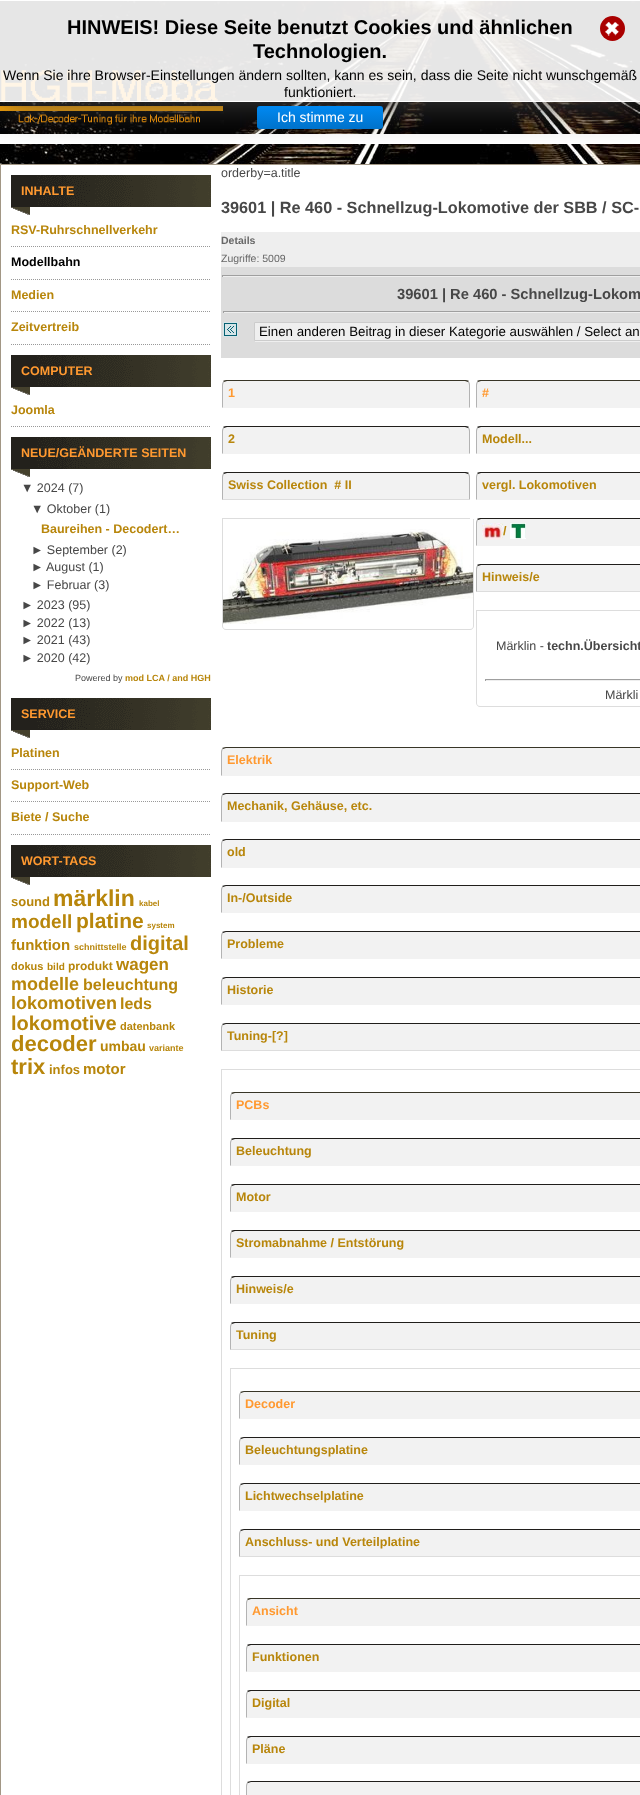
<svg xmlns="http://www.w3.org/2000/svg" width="640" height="1795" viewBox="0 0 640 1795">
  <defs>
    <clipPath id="clip1"><path d="M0 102h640v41H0z"/></clipPath>
    <linearGradient id="g1" gradientUnits="userSpaceOnUse" x1="320" y1="106" x2="320" y2="129"><stop offset="0" stop-color="#0089f2"/><stop offset="1" stop-color="#0072ca"/></linearGradient>
  </defs>
  <rect width="100%" height="100%" fill="#fff"/>
  <image x="0" y="1" width="640" height="163" href="img/1.png"/>
  <path d="M0 134h640v10H0z" fill="#fff"/>
  <image x="0" y="70" width="223" height="55" href="img/3.png"/>
  <g clip-path="url(#clip1)">
    <path d="M0 0h640v102H0z" fill="#444" filter="blur(20px)"/>
  </g>
  <path d="M0 1h640v100H0z" fill="#ffffffe6"/>
  <path d="M0 101h640v1H0z" fill="#fff"/>
  <circle cx="612.5" cy="28.5" r="12.5" fill="#a00"/>
  <image x="605" y="22" width="14" height="14" href="img/2.png"/>
  <rect x="257" y="106" width="126" height="23" rx="3" fill="url(#g1)"/>
  <path d="M0.5 164.5h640v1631H0.5z" fill="none" stroke="#a29785"/>
  <image x="11" y="175" width="200" height="40" href="img/4.png"/>
  <path d="M11 246.5H211" fill="none" stroke="#999" stroke-dasharray="1 1"/>
  <path d="M11 279.5H211" fill="none" stroke="#999" stroke-dasharray="1 1"/>
  <path d="M11 311.5H211" fill="none" stroke="#999" stroke-dasharray="1 1"/>
  <path d="M11 344.5H211" fill="none" stroke="#999" stroke-dasharray="1 1"/>
  <image x="11" y="355" width="200" height="40" href="img/4.png"/>
  <path d="M11 426.5H211" fill="none" stroke="#999" stroke-dasharray="1 1"/>
  <image x="11" y="437" width="200" height="40" href="img/4.png"/>
  <image x="11" y="698" width="200" height="40" href="img/4.png"/>
  <path d="M11 769.5H211" fill="none" stroke="#999" stroke-dasharray="1 1"/>
  <path d="M11 801.5H211" fill="none" stroke="#999" stroke-dasharray="1 1"/>
  <path d="M11 834.5H211" fill="none" stroke="#999" stroke-dasharray="1 1"/>
  <image x="11" y="845" width="200" height="40" href="img/4.png"/>
  <path d="M221 232h419v35H221z" fill="#eee"/>
  <path d="M221 267h419v91H221z" fill="#dcdcdc"/>
  <path d="M222 275h418v1H222z" fill="#9f9f9f"/>
  <path d="M222 276h418v1H222z" fill="#eee"/>
  <path d="M222 275h1v2H222z" fill="#9f9f9f"/>
  <path d="M223 311h417v1H223z" fill="#9f9f9f"/>
  <path d="M223 312h417v1H223z" fill="#eee"/>
  <path d="M223 311h1v2H223z" fill="#9f9f9f"/>
  <image x="223" y="322" width="15" height="15" href="img/5.png"/>
  <path d="M255 341V342H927V323H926V341Z" fill="#efefef"/>
  <path d="M254.5 322.5h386v18H254.5z" fill="#efefef" stroke="#ccc"/>
  <path d="M222 518h248v1H222z" fill="#ddd"/>
  <path d="M227 380H465C468 380 470 382 470 385V408H222V385C222 382 224 380 227 380Z" fill="#f2f2f2"/>
  <path d="M227 380C226 380 224 380 223 381L224 382C225 382 226 381 227 381H465C466 381 467 382 468 382L469 381C468 380 466 380 465 380Z" fill="#383527"/>
  <path d="M470 408V385C470 383.5 469.5 382 468.5 381.5L468 382C468.5 383 469 384 469 385V407Z" fill="#b3b3b3"/>
  <path d="M222 408L223 407V385C223 384 223.5 383 224 382L223.5 381.5C222.5 382 222 383.5 222 385Z" fill="#b3b3b3"/>
  <path d="M227 426H465C468 426 470 428 470 431V454H222V431C222 428 224 426 227 426Z" fill="#f2f2f2"/>
  <path d="M227 426C226 426 224 426 223 427L224 428C225 428 226 427 227 427H465C466 427 467 428 468 428L469 427C468 426 466 426 465 426Z" fill="#201e1b"/>
  <path d="M470 454V431C470 429.5 469.5 428 468.5 427.5L468 428C468.5 429 469 430 469 431V453Z" fill="#b3b3b3"/>
  <path d="M222 454L223 453V431C223 430 223.5 429 224 428L223.5 427.5C222.5 428 222 429.5 222 431Z" fill="#b3b3b3"/>
  <path d="M227 472H465C468 472 470 474 470 477V500H222V477C222 474 224 472 227 472Z" fill="#f2f2f2"/>
  <path d="M227 472C226 472 224 472 223 473L224 474C225 474 226 473 227 473H465C466 473 467 474 468 474L469 473C468 472 466 472 465 472Z" fill="#201e1b"/>
  <path d="M470 500V477C470 475.5 469.5 474 468.5 473.5L468 474C468.5 475 469 476 469 477V499Z" fill="#b3b3b3"/>
  <path d="M470 500L469 499H223L222 500Z" fill="#ddd"/>
  <path d="M222 500L223 499V477C223 476 223.5 475 224 474L223.5 473.5C222.5 474 222 475.5 222 477Z" fill="#b3b3b3"/>
  <path d="M222 519H474V626C474 628 472 630 470 630H226C224 630 222 628 222 626ZM223 519H473V626C473 628 472 629 470 629H226C224 629 223 628 223 626Z" fill="#ddd" fill-rule="evenodd"/>
  <image x="223" y="529" width="250" height="95" href="img/6.png"/>
  <path d="M476 610h164v1H476z" fill="#ddd"/>
  <path d="M481 380H640C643 380 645 382 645 385V408H476V385C476 382 478 380 481 380Z" fill="#f2f2f2"/>
  <path d="M481 380C480 380 478 380 477 381L478 382C479 382 480 381 481 381H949C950 381 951 382 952 382L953 381C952 380 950 380 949 380Z" fill="#383527"/>
  <path d="M476 408L477 407V385C477 384 477.5 383 478 382L477.5 381.5C476.5 382 476 383.5 476 385Z" fill="#b3b3b3"/>
  <path d="M481 426H640C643 426 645 428 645 431V454H476V431C476 428 478 426 481 426Z" fill="#f2f2f2"/>
  <path d="M481 426C480 426 478 426 477 427L478 428C479 428 480 427 481 427H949C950 427 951 428 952 428L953 427C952 426 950 426 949 426Z" fill="#201e1b"/>
  <path d="M476 454L477 453V431C477 430 477.5 429 478 428L477.5 427.5C476.5 428 476 429.5 476 431Z" fill="#b3b3b3"/>
  <path d="M481 472H640C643 472 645 474 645 477V500H476V477C476 474 478 472 481 472Z" fill="#f2f2f2"/>
  <path d="M481 472C480 472 478 472 477 473L478 474C479 474 480 473 481 473H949C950 473 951 474 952 474L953 473C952 472 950 472 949 472Z" fill="#201e1b"/>
  <path d="M476 500L477 499V477C477 476 477.5 475 478 474L477.5 473.5C476.5 474 476 475.5 476 477Z" fill="#b3b3b3"/>
  <path d="M481 518H640C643 518 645 520 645 523V546H476V523C476 520 478 518 481 518Z" fill="#f2f2f2"/>
  <path d="M481 518C480 518 478 518 477 519L478 520C479 520 480 519 481 519H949C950 519 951 520 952 520L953 519C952 518 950 518 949 518Z" fill="#201e1b"/>
  <path d="M476 546L477 545V523C477 522 477.5 521 478 520L477.5 519.5C476.5 520 476 521.5 476 523Z" fill="#b3b3b3"/>
  <image x="482" y="523" width="21" height="17" href="img/7.png"/>
  <image x="510" y="523" width="16" height="16" href="img/8.png"/>
  <path d="M481 564H640C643 564 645 566 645 569V592H476V569C476 566 478 564 481 564Z" fill="#f2f2f2"/>
  <path d="M481 564C480 564 478 564 477 565L478 566C479 566 480 565 481 565H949C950 565 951 566 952 566L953 565C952 564 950 564 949 564Z" fill="#201e1b"/>
  <path d="M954 592L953 591H477L476 592Z" fill="#ddd"/>
  <path d="M476 592L477 591V569C477 568 477.5 567 478 566L477.5 565.5C476.5 566 476 567.5 476 569Z" fill="#b3b3b3"/>
  <path d="M476 611H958V703C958 705 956 707 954 707H480C478 707 476 705 476 703ZM477 611H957V703C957 705 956 706 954 706H480C478 706 477 705 477 703Z" fill="#ddd" fill-rule="evenodd"/>
  <path d="M485 679h155v1H485z" fill="#9f9f9f"/>
  <path d="M485 680h155v1H485z" fill="#eee"/>
  <path d="M485 679h1v2H485z" fill="#9f9f9f"/>
  <path d="M221 1069h419v1H221z" fill="#ddd"/>
  <path d="M226 747H640C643 747 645 749 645 752V776H221V752C221 749 223 747 226 747Z" fill="#f2f2f2"/>
  <path d="M226 747C224 747 223 748 222 748L223 749L226 748H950L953 749L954 748C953 748 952 747 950 747Z" fill="#383527"/>
  <path d="M221 776L222 775V752C222 751 222.5 750 223 749L222.5 748.5C221.5 749 221 750.5 221 752Z" fill="#b3b3b3"/>
  <path d="M226 793H640C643 793 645 795 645 798V822H221V798C221 795 223 793 226 793Z" fill="#f2f2f2"/>
  <path d="M226 793C224 793 223 794 222 794L223 795L226 794H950L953 795L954 794C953 794 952 793 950 793Z" fill="#201e1b"/>
  <path d="M221 822L222 821V798C222 797 222.5 796 223 795L222.5 794.5C221.5 795 221 796.5 221 798Z" fill="#b3b3b3"/>
  <path d="M226 839H640C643 839 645 841 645 844V868H221V844C221 841 223 839 226 839Z" fill="#f2f2f2"/>
  <path d="M226 839C224 839 223 840 222 840L223 841L226 840H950L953 841L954 840C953 840 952 839 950 839Z" fill="#201e1b"/>
  <path d="M221 868L222 867V844C222 843 222.5 842 223 841L222.5 840.5C221.5 841 221 842.5 221 844Z" fill="#b3b3b3"/>
  <path d="M226 885H640C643 885 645 887 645 890V913H221V890C221 887 223 885 226 885Z" fill="#f2f2f2"/>
  <path d="M226 885C224 885 223 886 222 886L223 887L226 886H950L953 887L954 886C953 886 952 885 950 885Z" fill="#201e1b"/>
  <path d="M221 913L222 912V890C222 889 222.5 888 223 887L222.5 886.5C221.5 887 221 888.5 221 890Z" fill="#b3b3b3"/>
  <path d="M226 931H640C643 931 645 933 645 936V959H221V936C221 933 223 931 226 931Z" fill="#f2f2f2"/>
  <path d="M226 931C224 931 223 932 222 932L223 933L226 932H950L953 933L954 932C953 932 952 931 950 931Z" fill="#201e1b"/>
  <path d="M221 959L222 958V936C222 935 222.5 934 223 933L222.5 932.5C221.5 933 221 934.5 221 936Z" fill="#b3b3b3"/>
  <path d="M226 977H640C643 977 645 979 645 982V1005H221V982C221 979 223 977 226 977Z" fill="#f2f2f2"/>
  <path d="M226 977C224 977 223 978 222 978L223 979L226 978H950L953 979L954 978C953 978 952 977 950 977Z" fill="#201e1b"/>
  <path d="M221 1005L222 1004V982C222 981 222.5 980 223 979L222.5 978.5C221.5 979 221 980.5 221 982Z" fill="#b3b3b3"/>
  <path d="M226 1023H640C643 1023 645 1025 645 1028V1051H221V1028C221 1025 223 1023 226 1023Z" fill="#f2f2f2"/>
  <path d="M226 1023C224 1023 223 1024 222 1024L223 1025L226 1024H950L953 1025L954 1024C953 1024 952 1023 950 1023Z" fill="#201e1b"/>
  <path d="M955 1051L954 1050H222L221 1051Z" fill="#ddd"/>
  <path d="M221 1051L222 1050V1028C222 1027 222.5 1026 223 1025L222.5 1024.5C221.5 1025 221 1026.5 221 1028Z" fill="#b3b3b3"/>
  <path d="M221 1070H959V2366C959 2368 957 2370 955 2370H225C223 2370 221 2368 221 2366ZM222 1070H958V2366C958 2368 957 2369 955 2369H225C223 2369 222 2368 222 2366Z" fill="#ddd" fill-rule="evenodd"/>
  <path d="M230 1368h410v1H230z" fill="#ddd"/>
  <path d="M235 1092H640C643 1092 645 1094 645 1097V1120H230V1097C230 1094 232 1092 235 1092Z" fill="#f2f2f2"/>
  <path d="M235 1092C234 1092 232 1092 231 1093L232 1094L235 1093H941L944 1094L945 1093C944 1092 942 1092 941 1092Z" fill="#383527"/>
  <path d="M230 1120L231 1119V1097C231 1096 231.5 1095 232 1094L231.5 1093.5C230.5 1094 230 1095.5 230 1097Z" fill="#b3b3b3"/>
  <path d="M235 1138H640C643 1138 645 1140 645 1143V1166H230V1143C230 1140 232 1138 235 1138Z" fill="#f2f2f2"/>
  <path d="M235 1138C234 1138 232 1138 231 1139L232 1140L235 1139H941L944 1140L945 1139C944 1138 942 1138 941 1138Z" fill="#201e1b"/>
  <path d="M230 1166L231 1165V1143C231 1142 231.5 1141 232 1140L231.5 1139.5C230.5 1140 230 1141.5 230 1143Z" fill="#b3b3b3"/>
  <path d="M235 1184H640C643 1184 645 1186 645 1189V1212H230V1189C230 1186 232 1184 235 1184Z" fill="#f2f2f2"/>
  <path d="M235 1184C234 1184 232 1184 231 1185L232 1186L235 1185H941L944 1186L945 1185C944 1184 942 1184 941 1184Z" fill="#201e1b"/>
  <path d="M230 1212L231 1211V1189C231 1188 231.5 1187 232 1186L231.5 1185.5C230.5 1186 230 1187.5 230 1189Z" fill="#b3b3b3"/>
  <path d="M235 1230H640C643 1230 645 1232 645 1235V1258H230V1235C230 1232 232 1230 235 1230Z" fill="#f2f2f2"/>
  <path d="M235 1230C234 1230 232 1230 231 1231L232 1232L235 1231H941L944 1232L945 1231C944 1230 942 1230 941 1230Z" fill="#201e1b"/>
  <path d="M230 1258L231 1257V1235C231 1234 231.5 1233 232 1232L231.5 1231.5C230.5 1232 230 1233.5 230 1235Z" fill="#b3b3b3"/>
  <path d="M235 1276H640C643 1276 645 1278 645 1281V1304H230V1281C230 1278 232 1276 235 1276Z" fill="#f2f2f2"/>
  <path d="M235 1276C234 1276 232 1276 231 1277L232 1278L235 1277H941L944 1278L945 1277C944 1276 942 1276 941 1276Z" fill="#201e1b"/>
  <path d="M230 1304L231 1303V1281C231 1280 231.5 1279 232 1278L231.5 1277.5C230.5 1278 230 1279.5 230 1281Z" fill="#b3b3b3"/>
  <path d="M235 1322H640C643 1322 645 1324 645 1327V1350H230V1327C230 1324 232 1322 235 1322Z" fill="#f2f2f2"/>
  <path d="M235 1322C234 1322 232 1322 231 1323L232 1324L235 1323H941L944 1324L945 1323C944 1322 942 1322 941 1322Z" fill="#201e1b"/>
  <path d="M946 1350L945 1349H231L230 1350Z" fill="#ddd"/>
  <path d="M230 1350L231 1349V1327C231 1326 231.5 1325 232 1324L231.5 1323.5C230.5 1324 230 1325.5 230 1327Z" fill="#b3b3b3"/>
  <path d="M230 1369H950V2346C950 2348 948 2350 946 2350H234C232 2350 230 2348 230 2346ZM231 1369H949V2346C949 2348 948 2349 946 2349H234C232 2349 231 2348 231 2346Z" fill="#ddd" fill-rule="evenodd"/>
  <path d="M239 1575h401v1H239z" fill="#ddd"/>
  <path d="M244 1391H640C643 1391 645 1393 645 1396V1419H239V1396C239 1393 241 1391 244 1391Z" fill="#f2f2f2"/>
  <path d="M244 1391C242 1391 241 1392 240 1392L241 1393L244 1392H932L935 1393L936 1392C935 1392 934 1391 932 1391Z" fill="#383527"/>
  <path d="M239 1419L240 1418V1396C240 1395 240.5 1394 241 1393L240.5 1392.5C239.5 1393 239 1394.5 239 1396Z" fill="#b3b3b3"/>
  <path d="M244 1437H640C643 1437 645 1439 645 1442V1465H239V1442C239 1439 241 1437 244 1437Z" fill="#f2f2f2"/>
  <path d="M244 1437C242 1437 241 1438 240 1438L241 1439L244 1438H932L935 1439L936 1438C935 1438 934 1437 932 1437Z" fill="#201e1b"/>
  <path d="M239 1465L240 1464V1442C240 1441 240.5 1440 241 1439L240.5 1438.5C239.5 1439 239 1440.5 239 1442Z" fill="#b3b3b3"/>
  <path d="M244 1483H640C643 1483 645 1485 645 1488V1511H239V1488C239 1485 241 1483 244 1483Z" fill="#f2f2f2"/>
  <path d="M244 1483C242 1483 241 1484 240 1484L241 1485L244 1484H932L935 1485L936 1484C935 1484 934 1483 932 1483Z" fill="#201e1b"/>
  <path d="M239 1511L240 1510V1488C240 1487 240.5 1486 241 1485L240.5 1484.5C239.5 1485 239 1486.5 239 1488Z" fill="#b3b3b3"/>
  <path d="M244 1529H640C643 1529 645 1531 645 1534V1557H239V1534C239 1531 241 1529 244 1529Z" fill="#f2f2f2"/>
  <path d="M244 1529C242 1529 241 1530 240 1530L241 1531L244 1530H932L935 1531L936 1530C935 1530 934 1529 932 1529Z" fill="#201e1b"/>
  <path d="M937 1557L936 1556H240L239 1557Z" fill="#ddd"/>
  <path d="M239 1557L240 1556V1534C240 1533 240.5 1532 241 1531L240.5 1530.5C239.5 1531 239 1532.5 239 1534Z" fill="#b3b3b3"/>
  <path d="M239 1576H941V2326C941 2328 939 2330 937 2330H243C241 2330 239 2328 239 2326ZM240 1576H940V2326C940 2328 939 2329 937 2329H243C241 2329 240 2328 240 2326Z" fill="#ddd" fill-rule="evenodd"/>
  <path d="M251 1598H640C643 1598 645 1600 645 1603V1626H246V1603C246 1600 248 1598 251 1598Z" fill="#f2f2f2"/>
  <path d="M251 1598C250 1598 248 1598 247 1599L248 1600L251 1599H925L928 1600L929 1599C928 1598 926 1598 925 1598Z" fill="#383527"/>
  <path d="M246 1626L247 1625V1603C247 1602 247.5 1601 248 1600L247.5 1599.5C246.5 1600 246 1601.5 246 1603Z" fill="#b3b3b3"/>
  <path d="M251 1644H640C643 1644 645 1646 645 1649V1672H246V1649C246 1646 248 1644 251 1644Z" fill="#f2f2f2"/>
  <path d="M251 1644C250 1644 248 1644 247 1645L248 1646L251 1645H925L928 1646L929 1645C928 1644 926 1644 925 1644Z" fill="#201e1b"/>
  <path d="M246 1672L247 1671V1649C247 1648 247.5 1647 248 1646L247.5 1645.5C246.5 1646 246 1647.5 246 1649Z" fill="#b3b3b3"/>
  <path d="M251 1690H640C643 1690 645 1692 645 1695V1718H246V1695C246 1692 248 1690 251 1690Z" fill="#f2f2f2"/>
  <path d="M251 1690C250 1690 248 1690 247 1691L248 1692L251 1691H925L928 1692L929 1691C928 1690 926 1690 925 1690Z" fill="#201e1b"/>
  <path d="M246 1718L247 1717V1695C247 1694 247.5 1693 248 1692L247.5 1691.5C246.5 1692 246 1693.5 246 1695Z" fill="#b3b3b3"/>
  <path d="M251 1736H640C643 1736 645 1738 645 1741V1764H246V1741C246 1738 248 1736 251 1736Z" fill="#f2f2f2"/>
  <path d="M251 1736C250 1736 248 1736 247 1737L248 1738L251 1737H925L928 1738L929 1737C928 1736 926 1736 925 1736Z" fill="#201e1b"/>
  <path d="M246 1764L247 1763V1741C247 1740 247.5 1739 248 1738L247.5 1737.5C246.5 1738 246 1739.5 246 1741Z" fill="#b3b3b3"/>
  <path d="M251 1781H640C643 1781 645 1783 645 1786V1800H246V1786C246 1783 248 1781 251 1781Z" fill="#f2f2f2"/>
  <path d="M251 1781C250 1781 248 1782 247 1782L248 1783L251 1782H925L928 1783L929 1782C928 1782 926 1781 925 1781Z" fill="#201e1b"/>
  <path d="M246 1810L247 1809V1786C247 1785 247.5 1784 248 1783L247.5 1782.5C246.5 1783 246 1784.5 246 1786Z" fill="#b3b3b3"/>
  <g font-family="Liberation Sans" font-size="20" font-weight="bold" fill="#000">
    <text x="67" y="34">HINWEIS! Diese Seite benutzt Cookies und ähnlichen</text>
    <text x="253" y="58">Technologien.</text>
  </g>
  <g font-family="Liberation Sans" font-size="14" fill="#000">
    <text x="3" y="80">Wenn Sie ihre Browser-Einstellungen ändern sollten, kann es sein, dass die Seite nicht wunschgemäß</text>
    <text x="284" y="97">funktioniert.</text>
  </g>
  <text x="277" y="122" font-family="Liberation Sans" font-size="14" fill="#fff">Ich stimme zu</text>
  <text x="21" y="195" font-family="Liberation Sans" font-size="12.5" font-weight="bold" fill="#ff9930">INHALTE</text>
  <text x="11" y="234" font-family="Liberation Sans" font-size="12.5" font-weight="bold" fill="#b8860b">RSV-Ruhrschnellverkehr</text>
  <text x="11" y="266" font-family="Liberation Sans" font-size="12.5" font-weight="bold" fill="#000">Modellbahn</text>
  <g font-family="Liberation Sans" font-size="12.5" font-weight="bold" fill="#b8860b">
    <text x="11" y="299">Medien</text>
    <text x="11" y="331">Zeitvertreib</text>
  </g>
  <text x="21" y="375" font-family="Liberation Sans" font-size="12.5" font-weight="bold" fill="#ff9930">COMPUTER</text>
  <text x="11" y="414" font-family="Liberation Sans" font-size="12.5" font-weight="bold" fill="#b8860b">Joomla</text>
  <text x="21" y="457" font-family="Liberation Sans" font-size="12.5" font-weight="bold" fill="#ff9930">NEUE/GEÄNDERTE SEITEN</text>
  <g font-family="Liberation Sans" font-size="12.5" fill="#474747">
    <text x="21" y="492">▼ 2024 (7)</text>
    <text x="31" y="513">▼ Oktober (1)</text>
  </g>
  <text x="41" y="533" font-family="Liberation Sans" font-size="12.5" font-weight="bold" fill="#b8860b">Baureihen - Decodert…</text>
  <g font-family="Liberation Sans" font-size="12.5" fill="#474747">
    <text x="31" y="554">► September (2)</text>
    <text x="31" y="571">►</text>
    <text x="46" y="571">August (1)</text>
    <text x="31" y="589">► Februar (3)</text>
    <text x="21" y="609">► 2023 (95)</text>
    <text x="21" y="627">► 2022 (13)</text>
    <text x="21" y="644">► 2021 (43)</text>
    <text x="21" y="662">► 2020 (42)</text>
  </g>
  <text x="75" y="681" font-family="Liberation Sans" font-size="9" fill="#474747">Powered by</text>
  <text x="125" y="681" font-family="Liberation Sans" font-size="9" font-weight="bold" fill="#b8860b">mod LCA / and HGH</text>
  <text x="21" y="718" font-family="Liberation Sans" font-size="12.5" font-weight="bold" fill="#ff9930">SERVICE</text>
  <g font-family="Liberation Sans" font-size="12.5" font-weight="bold" fill="#b8860b">
    <text x="11" y="757">Platinen</text>
    <text x="11" y="789">Support-Web</text>
    <text x="11" y="821">Biete / Suche</text>
  </g>
  <text x="21" y="865" font-family="Liberation Sans" font-size="12.5" font-weight="bold" fill="#ff9930">WORT-TAGS</text>
  <text x="11" y="906" font-family="Liberation Sans" font-size="13" font-weight="bold" fill="#b8860b">sound</text>
  <text x="53" y="906" font-family="Liberation Sans" font-size="23" font-weight="bold" fill="#b8860b">märklin</text>
  <text x="139" y="906" font-family="Liberation Sans" font-size="8" font-weight="bold" fill="#b8860b">kabel</text>
  <text x="11" y="928" font-family="Liberation Sans" font-size="19" font-weight="bold" fill="#b8860b">modell</text>
  <text x="76" y="928" font-family="Liberation Sans" font-size="21" font-weight="bold" fill="#b8860b">platine</text>
  <text x="147" y="928" font-family="Liberation Sans" font-size="8" font-weight="bold" fill="#b8860b">system</text>
  <text x="11" y="950" font-family="Liberation Sans" font-size="15" font-weight="bold" fill="#b8860b">funktion</text>
  <text x="74" y="950" font-family="Liberation Sans" font-size="9" font-weight="bold" fill="#b8860b">schnittstelle</text>
  <text x="130" y="950" font-family="Liberation Sans" font-size="20" font-weight="bold" fill="#b8860b">digital</text>
  <text x="11" y="970" font-family="Liberation Sans" font-size="11" font-weight="bold" fill="#b8860b">dokus</text>
  <text x="47" y="970" font-family="Liberation Sans" font-size="10" font-weight="bold" fill="#b8860b">bild</text>
  <text x="68" y="970" font-family="Liberation Sans" font-size="12" font-weight="bold" fill="#b8860b">produkt</text>
  <text x="116" y="970" font-family="Liberation Sans" font-size="17" font-weight="bold" fill="#b8860b">wagen</text>
  <text x="11" y="990" font-family="Liberation Sans" font-size="18" font-weight="bold" fill="#b8860b">modelle</text>
  <text x="83" y="990" font-family="Liberation Sans" font-size="16" font-weight="bold" fill="#b8860b">beleuchtung</text>
  <text x="11" y="1009" font-family="Liberation Sans" font-size="18" font-weight="bold" fill="#b8860b">lokomotiven</text>
  <text x="120" y="1009" font-family="Liberation Sans" font-size="16" font-weight="bold" fill="#b8860b">leds</text>
  <text x="11" y="1030" font-family="Liberation Sans" font-size="20" font-weight="bold" fill="#b8860b">lokomotive</text>
  <text x="120" y="1030" font-family="Liberation Sans" font-size="11" font-weight="bold" fill="#b8860b">datenbank</text>
  <text x="11" y="1051" font-family="Liberation Sans" font-size="22" font-weight="bold" fill="#b8860b">decoder</text>
  <text x="100" y="1051" font-family="Liberation Sans" font-size="14" font-weight="bold" fill="#b8860b">umbau</text>
  <text x="149" y="1051" font-family="Liberation Sans" font-size="9" font-weight="bold" fill="#b8860b">variante</text>
  <text x="11" y="1074" font-family="Liberation Sans" font-size="22" font-weight="bold" fill="#b8860b">trix</text>
  <text x="49" y="1074" font-family="Liberation Sans" font-size="13" font-weight="bold" fill="#b8860b">infos</text>
  <text x="83" y="1074" font-family="Liberation Sans" font-size="15" font-weight="bold" fill="#b8860b">motor</text>
  <text x="221" y="177" font-family="Liberation Sans" font-size="12.5" fill="#474747">orderby=a.title</text>
  <text x="221" y="213" font-family="Liberation Sans" font-size="16.25" font-weight="bold" fill="#474747">39601 | Re 460 - Schnellzug-Lokomotive der SBB / SC-</text>
  <text x="221" y="244" font-family="Liberation Sans" font-size="10.5" font-weight="bold" fill="#676767">Details</text>
  <text x="221" y="262" font-family="Liberation Sans" font-size="10.5" fill="#676767">Zugriffe: 5009</text>
  <text x="397" y="299" font-family="Liberation Sans" font-size="14.7" font-weight="bold" fill="#474747">39601 | Re 460 - Schnellzug-Lokom</text>
  <text x="259" y="336" font-family="Liberation Sans" font-size="13.3" fill="#000">Einen anderen Beitrag in dieser Kategorie auswählen / Select an</text>
  <text x="228" y="397" font-family="Liberation Sans" font-size="12.5" font-weight="bold" fill="#ff9930">1</text>
  <g font-family="Liberation Sans" font-size="12.5" font-weight="bold" fill="#b8860b">
    <text x="228" y="443">2</text>
    <text x="228" y="489" xml:space="preserve">Swiss Collection  # II</text>
  </g>
  <text x="482" y="397" font-family="Liberation Sans" font-size="12.5" font-weight="bold" fill="#ff9930">#</text>
  <g font-family="Liberation Sans" font-size="12.5" font-weight="bold" fill="#b8860b">
    <text x="482" y="443">Modell...</text>
    <text x="482" y="489">vergl. Lokomotiven</text>
    <text x="503" y="535">/</text>
    <text x="482" y="581">Hinweis/e</text>
  </g>
  <text x="496" y="650" font-family="Liberation Sans" font-size="12.5" fill="#474747">Märklin -</text>
  <text x="547" y="650" font-family="Liberation Sans" font-size="12.5" font-weight="bold" fill="#474747">techn.Übersicht</text>
  <text x="605" y="699" font-family="Liberation Sans" font-size="12.5" fill="#474747">Märkli</text>
  <text x="227" y="764" font-family="Liberation Sans" font-size="12.5" font-weight="bold" fill="#ff9930">Elektrik</text>
  <g font-family="Liberation Sans" font-size="12.5" font-weight="bold" fill="#b8860b">
    <text x="227" y="810">Mechanik, Gehäuse, etc.</text>
    <text x="227" y="856">old</text>
    <text x="227" y="902">In-/Outside</text>
    <text x="227" y="948">Probleme</text>
    <text x="227" y="994">Historie</text>
    <text x="227" y="1040">Tuning-[?]</text>
  </g>
  <text x="236" y="1109" font-family="Liberation Sans" font-size="12.5" font-weight="bold" fill="#ff9930">PCBs</text>
  <g font-family="Liberation Sans" font-size="12.5" font-weight="bold" fill="#b8860b">
    <text x="236" y="1155">Beleuchtung</text>
    <text x="236" y="1201">Motor</text>
    <text x="236" y="1247">Stromabnahme / Entstörung</text>
    <text x="236" y="1293">Hinweis/e</text>
    <text x="236" y="1339">Tuning</text>
  </g>
  <text x="245" y="1408" font-family="Liberation Sans" font-size="12.5" font-weight="bold" fill="#ff9930">Decoder</text>
  <g font-family="Liberation Sans" font-size="12.5" font-weight="bold" fill="#b8860b">
    <text x="245" y="1454">Beleuchtungsplatine</text>
    <text x="245" y="1500">Lichtwechselplatine</text>
    <text x="245" y="1546">Anschluss- und Verteilplatine</text>
  </g>
  <text x="252" y="1615" font-family="Liberation Sans" font-size="12.5" font-weight="bold" fill="#ff9930">Ansicht</text>
  <g font-family="Liberation Sans" font-size="12.5" font-weight="bold" fill="#b8860b">
    <text x="252" y="1661">Funktionen</text>
    <text x="252" y="1707">Digital</text>
    <text x="252" y="1753">Pläne</text>
  </g>
</svg>
